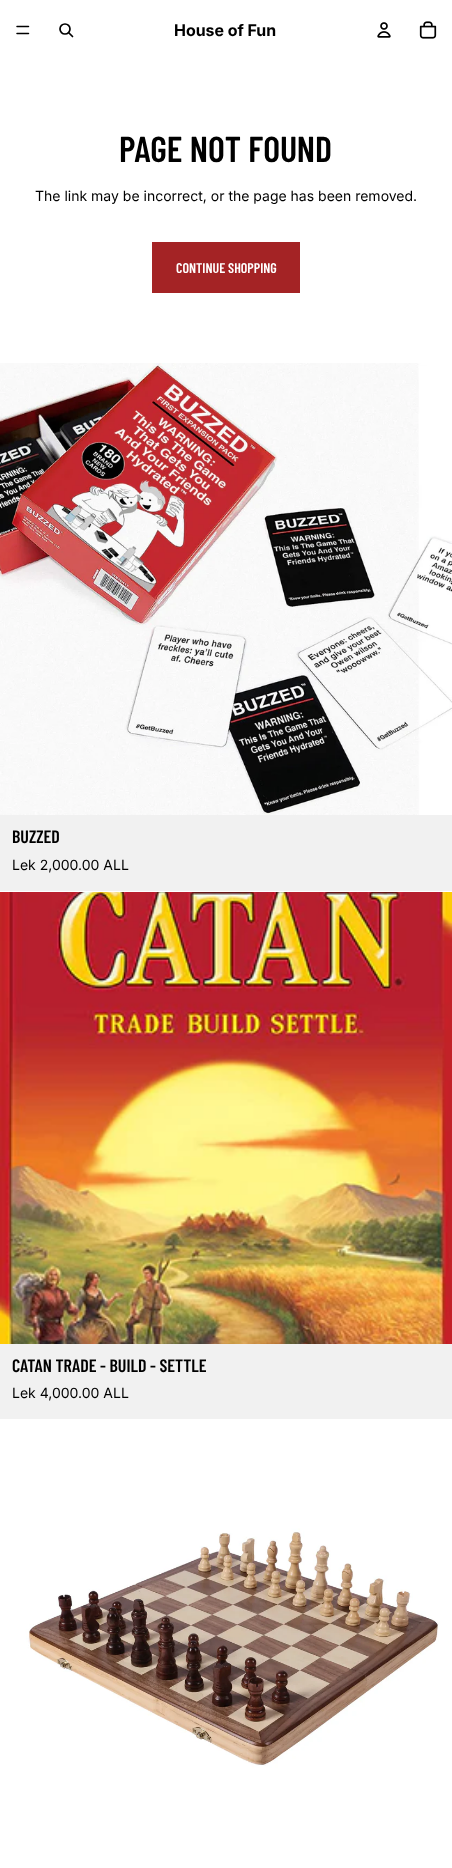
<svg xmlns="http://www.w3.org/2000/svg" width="452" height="1868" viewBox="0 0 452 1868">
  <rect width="100%" height="100%" fill="#fff"/>
  <path d="M17 26.5H28.5M17 33.5H28.5" fill="none" stroke="#000" stroke-width="1.5" stroke-linecap="round"/>
  <circle cx="65" cy="29" r="5" fill="none" stroke="#000" stroke-width="1.7"/>
  <path d="M69 33L72.5 36.5" fill="none" stroke="#000" stroke-width="1.7" stroke-linecap="round" stroke-linejoin="round"/>
  <image x="377" y="22" width="14" height="16" href="img/1.png"/>
  <image x="419" y="21" width="18" height="18" href="img/2.png"/>
  <path d="M152 242h148v51H152z" fill="#a42325"/>
  <path d="M0 815h452v76H0z" fill="#f1f1f1"/>
  <image x="0" y="363" width="452" height="452" href="img/3.png"/>
  <path d="M0 1344h452v75H0z" fill="#f1f1f1"/>
  <image x="0" y="892" width="452" height="452" href="img/4.png"/>
  <image x="0" y="1420" width="452" height="448" href="img/5.png"/>
  <text x="174" y="36" font-family="Inter" font-size="16" font-weight="bold" fill="#000">House of Fun</text>
  <text x="119" y="162" font-family="Barlow Condensed" font-size="36" font-weight="600" fill="#000">PAGE NOT FOUND</text>
  <text x="35" y="201" font-family="Inter" font-size="14" fill="#000">The link may be incorrect, or the page has been removed.</text>
  <text x="176" y="273" font-family="Barlow Condensed" font-size="14" font-weight="600" fill="#fff">CONTINUE SHOPPING</text>
  <text x="12" y="843" font-family="Barlow Condensed" font-size="18" font-weight="600" fill="#000">BUZZED</text>
  <text x="12" y="870" font-family="Inter" font-size="14" fill="#000">Lek 2,000.00 ALL</text>
  <text x="12" y="1372" font-family="Barlow Condensed" font-size="18" font-weight="600" fill="#000">CATAN TRADE - BUILD - SETTLE</text>
  <text x="12" y="1398" font-family="Inter" font-size="14" fill="#000">Lek 4,000.00 ALL</text>
</svg>
